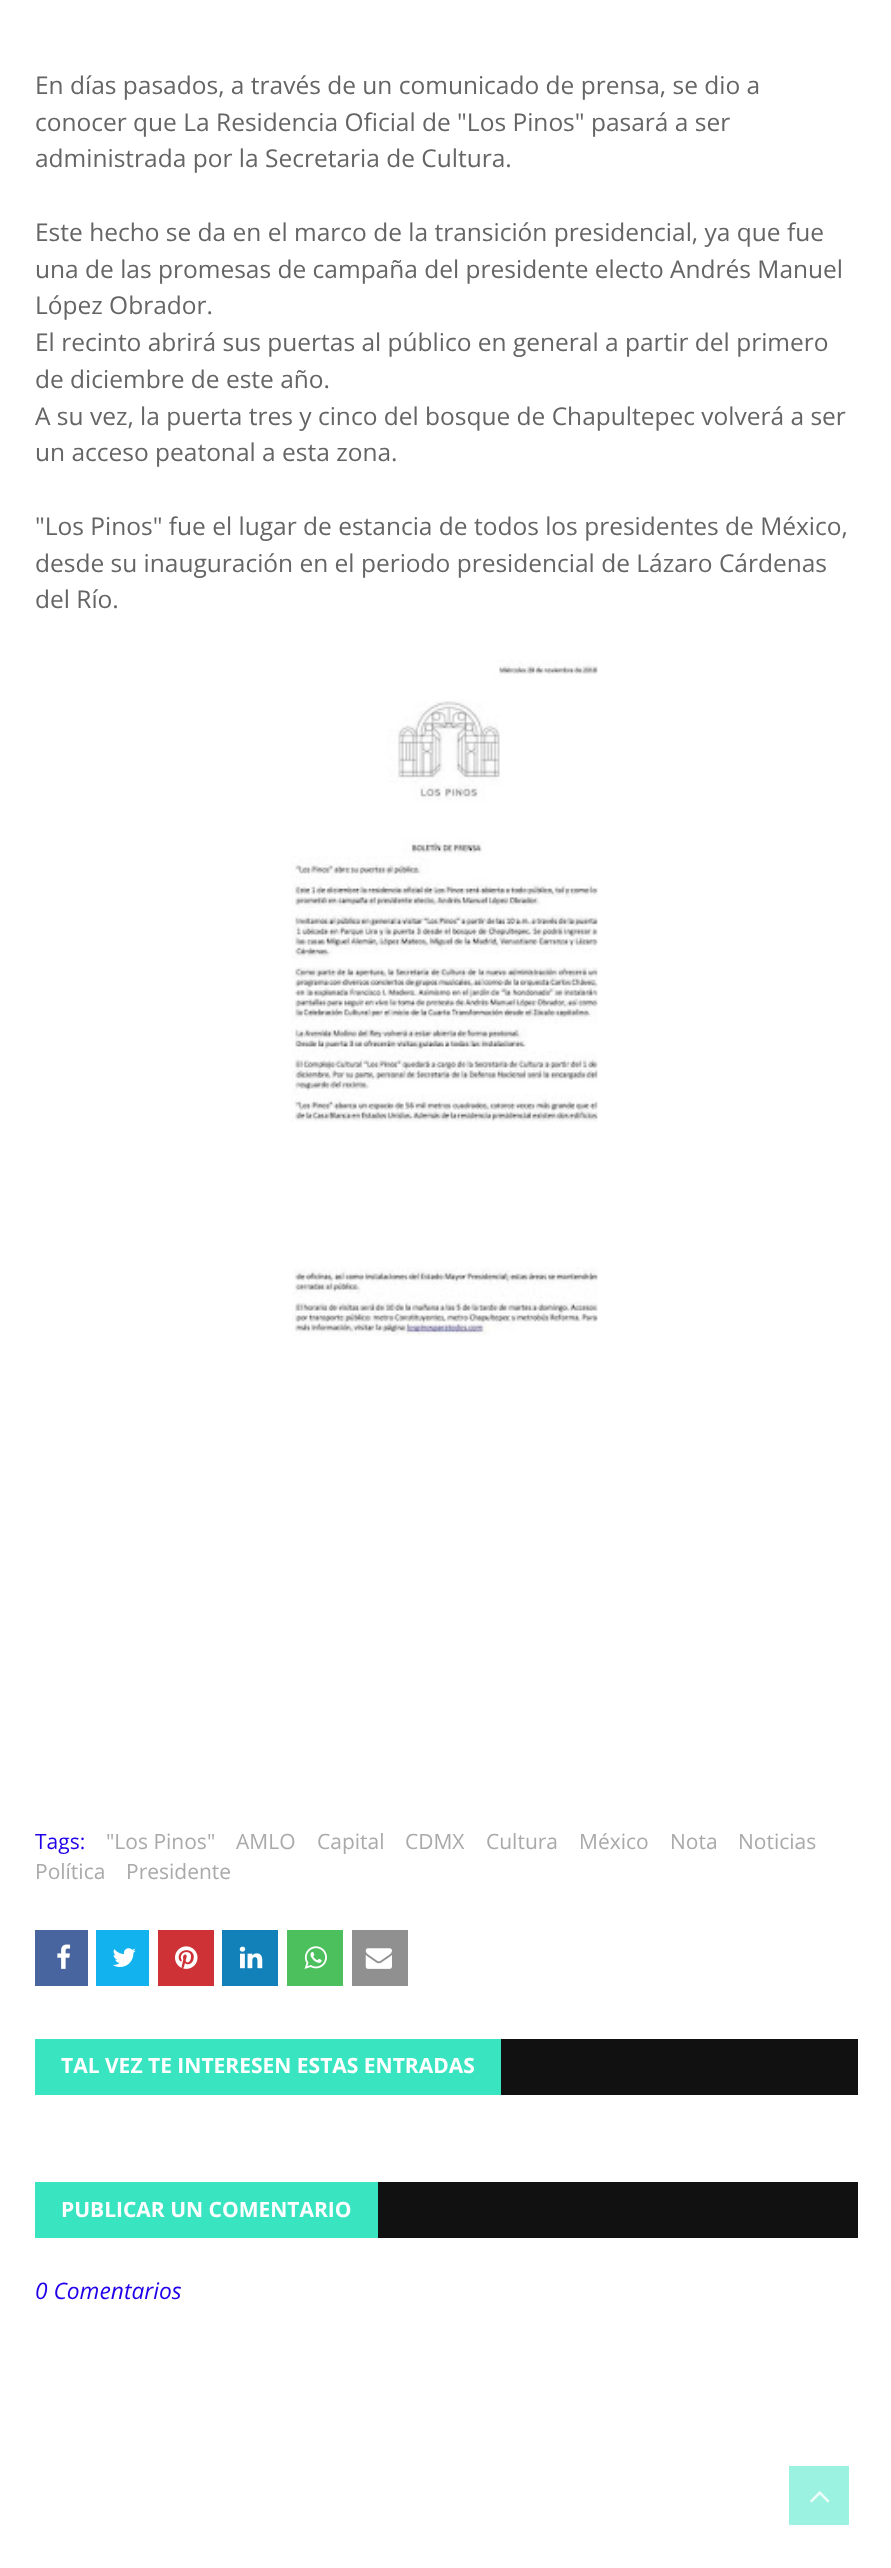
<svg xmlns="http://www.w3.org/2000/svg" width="891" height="2568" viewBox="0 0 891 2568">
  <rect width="100%" height="100%" fill="#fff"/>
  <image x="291" y="660" width="307" height="462" href="img/1.png"/>
  <image x="292" y="1267" width="306" height="69" href="img/2.png"/>
  <path d="M35 1930h53v56H35z" fill="#4965a0"/>
  <image x="57" y="1944" width="14" height="25" href="img/3.png"/>
  <path d="M96 1930h53v56H96z" fill="#12b2ef"/>
  <image x="112" y="1948" width="24" height="19" href="img/4.png"/>
  <path d="M158 1930h56v56H158z" fill="#ce3136"/>
  <image x="175" y="1946" width="23" height="23" href="img/5.png"/>
  <path d="M222 1930h56v56H222z" fill="#1281ba"/>
  <image x="239" y="1946" width="24" height="23" href="img/6.png"/>
  <path d="M287 1930h56v56H287z" fill="#4cc05c"/>
  <image x="304" y="1946" width="23" height="23" href="img/7.png"/>
  <path d="M352 1930h56v56H352z" fill="#909090"/>
  <image x="365" y="1948" width="27" height="21" href="img/8.png"/>
  <path d="M501 2039h357v56H501z" fill="#111"/>
  <path d="M35 2039h466v56H35z" fill="#39e4c1"/>
  <path d="M378 2182h480v56H378z" fill="#111"/>
  <path d="M35 2182h343v56H35z" fill="#39e4c1"/>
  <path d="M789 2466h60v59H789z" fill="#9cf2e0"/>
  <image x="810" y="2491" width="20" height="12" href="img/9.png"/>
  <g font-family="Open Sans" font-size="24.5" fill="#656565">
    <text x="35" y="94">En días pasados, a través de un comunicado de prensa, se dio a</text>
    <text x="35" y="131">conocer que La Residencia Oficial de "Los Pinos" pasará a ser</text>
    <text x="35" y="167">administrada por la Secretaria de Cultura.</text>
    <text x="35" y="241">Este hecho se da en el marco de la transición presidencial, ya que fue</text>
    <text x="35" y="278">una de las promesas de campaña del presidente electo Andrés Manuel</text>
    <text x="35" y="314">López Obrador.</text>
    <text x="35" y="351">El recinto abrirá sus puertas al público en general a partir del primero</text>
    <text x="35" y="388">de diciembre de este año.</text>
    <text x="35" y="425">A su vez, la puerta tres y cinco del bosque de Chapultepec volverá a ser</text>
    <text x="35" y="461">un acceso peatonal a esta zona.</text>
    <text x="35" y="535">"Los Pinos" fue el lugar de estancia de todos los presidentes de México,</text>
    <text x="35" y="572">desde su inauguración en el periodo presidencial de Lázaro Cárdenas</text>
    <text x="35" y="608">del Río.</text>
  </g>
  <g font-family="Open Sans" font-size="21" fill="#aaa">
    <text x="106" y="1849">"Los Pinos"</text>
    <text x="236" y="1849">AMLO</text>
    <text x="317" y="1849">Capital</text>
    <text x="405" y="1849">CDMX</text>
    <text x="486" y="1849">Cultura</text>
    <text x="579" y="1849">México</text>
    <text x="670" y="1849">Nota</text>
    <text x="738" y="1849">Noticias</text>
    <text x="35" y="1879">Política</text>
    <text x="126" y="1879">Presidente</text>
  </g>
  <text x="35" y="1849" font-family="Open Sans" font-size="21" fill="#2000e9">Tags:</text>
  <g font-family="Open Sans" font-size="21" font-weight="bold" fill="#fff">
    <text x="61" y="2073">TAL VEZ TE INTERESEN ESTAS ENTRADAS</text>
    <text x="61" y="2217">PUBLICAR UN COMENTARIO</text>
  </g>
  <text x="35" y="2299" font-family="Open Sans" font-size="22.75" font-style="italic" fill="#2000e9">0 Comentarios</text>
</svg>
